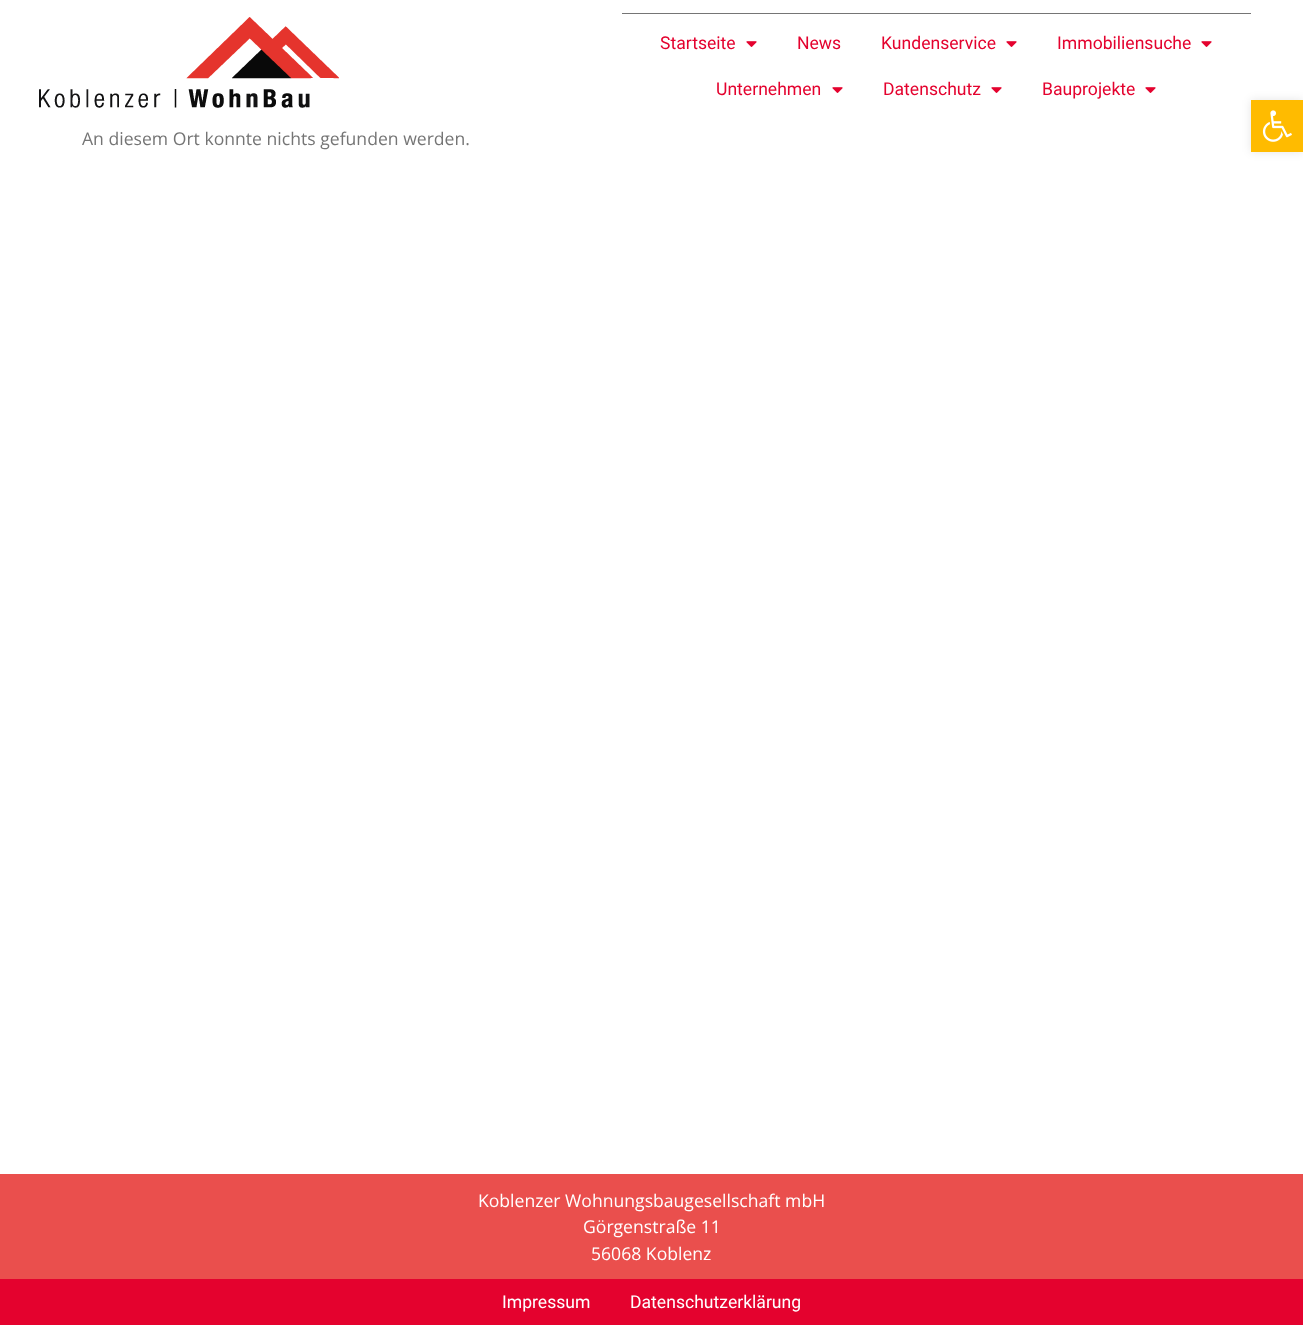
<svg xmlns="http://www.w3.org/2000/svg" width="1303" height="1325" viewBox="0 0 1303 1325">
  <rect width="100%" height="100%" fill="#fff"/>
  <image x="39" y="17" width="300" height="91" href="img/1.png"/>
  <path d="M622 13h629v1H622z" fill="#757575"/>
  <image x="746" y="41" width="11" height="6" href="img/2.png"/>
  <image x="1006" y="41" width="11" height="6" href="img/2.png"/>
  <image x="1201" y="41" width="11" height="6" href="img/2.png"/>
  <image x="832" y="87" width="11" height="6" href="img/2.png"/>
  <image x="991" y="87" width="11" height="6" href="img/2.png"/>
  <image x="1145" y="87" width="11" height="6" href="img/2.png"/>
  <path d="M1251 100h52v52H1251z" fill="#0000001a" filter="blur(5px)"/>
  <path d="M1251 100h52v52H1251z" fill="#fb0"/>
  <image x="1262" y="110" width="30" height="32" href="img/3.png"/>
  <path d="M0 1174h1303v105H0z" fill="#ea4f4d"/>
  <path d="M0 1279h1303v46H0z" fill="#e4022e"/>
  <g font-family="Roboto" font-size="17.6" fill="#e4022e">
    <text x="660" y="49">Startseite</text>
    <text x="797" y="49">News</text>
    <text x="881" y="49">Kundenservice</text>
    <text x="1057" y="49">Immobiliensuche</text>
    <text x="716" y="95">Unternehmen</text>
    <text x="883" y="95">Datenschutz</text>
    <text x="1042" y="95">Bauprojekte</text>
  </g>
  <text x="82" y="145" font-family="Open Sans" font-size="17.6" fill="#757575">An diesem Ort konnte nichts gefunden werden.</text>
  <g font-family="Open Sans" font-size="17.6" fill="#fff">
    <text x="478" y="1207">Koblenzer Wohnungsbaugesellschaft mbH</text>
    <text x="583" y="1233">Görgenstraße 11</text>
    <text x="591" y="1260">56068 Koblenz</text>
  </g>
  <g font-family="Roboto" font-size="17.6" fill="#fff">
    <text x="502" y="1308">Impressum</text>
    <text x="630" y="1308">Datenschutzerklärung</text>
  </g>
</svg>
